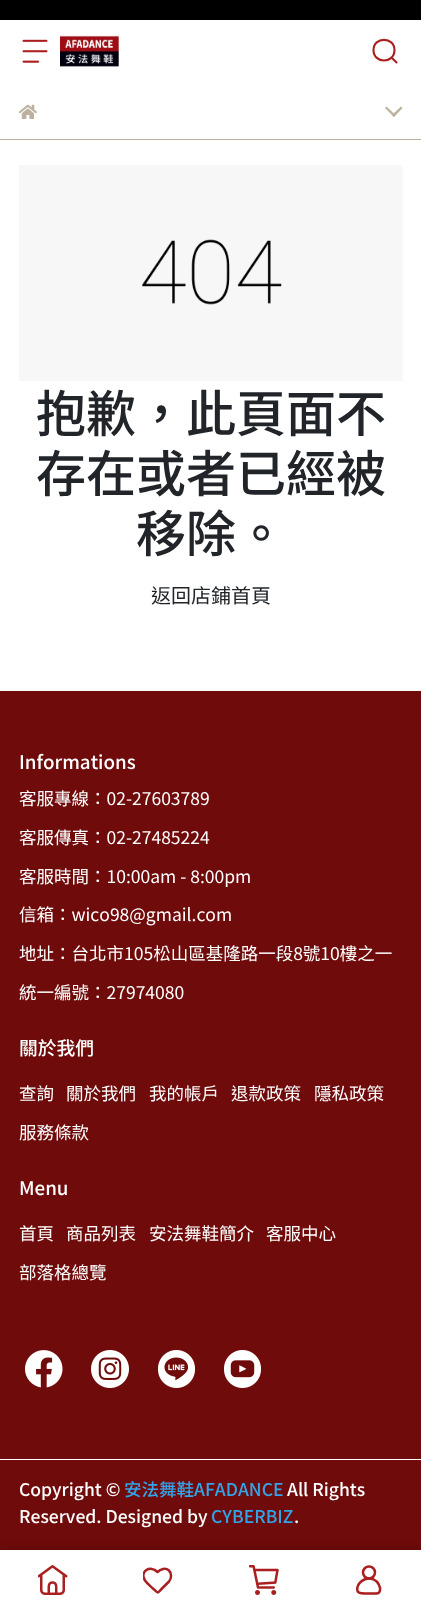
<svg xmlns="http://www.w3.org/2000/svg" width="421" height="1610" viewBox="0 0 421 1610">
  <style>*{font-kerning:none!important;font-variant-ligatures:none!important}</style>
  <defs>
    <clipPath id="clip1"><path d="M143 1565h30v30H143z"/></clipPath>
  </defs>
  <rect width="100%" height="100%" fill="#fff"/>
  <path d="M0 0h421v20H0z" fill="#000"/>
  <image x="22" y="39" width="26" height="24" href="img/1.png"/>
  <image x="60" y="35" width="59" height="32" href="img/2.png"/>
  <path d="M394.5 50C394.5 64 373.5 64 373.5 50C373.5 36.5 394.5 36.5 394.5 50ZM392.5 58.5L396.5 62.5" fill="none" stroke="#aa1f1f" stroke-width="2.1" stroke-linecap="round" stroke-linejoin="round"/>
  <path d="M0 691h421v859H0z" fill="#6f0b0b"/>
  <path d="M0 1550h421v60H0z" fill="#00000033" filter="blur(6px)"/>
  <path d="M0 1550h421v60H0z" fill="#fff"/>
  <image x="38" y="1565" width="30" height="30" href="img/3.png"/>
  <g clip-path="url(#clip1)">
    <path d="M169 1570.5C165.5 1567.5 160.5 1569 157.5 1572C150 1564.5 139.5 1571.5 145 1580.5C147.5 1584 151 1586.5 153.5 1589C159 1594 157 1593.5 163 1587.5L169 1581.5C171.5 1578.5 172 1573.5 169 1570.5Z" fill="none" stroke="#aa1f1f" stroke-width="2.5" stroke-linecap="round" stroke-linejoin="round"/>
  </g>
  <image x="249" y="1565" width="30" height="30" href="img/4.png"/>
  <circle cx="369" cy="1572.5" r="6" fill="none" stroke="#aa1f1f" stroke-width="2.5"/>
  <path d="M376 1593.5H366.5C361 1593.5 356 1594 357.5 1587C358.5 1583.5 361 1581 364.5 1579.5C378.5 1574 385 1594 376 1593.5Z" fill="none" stroke="#aa1f1f" stroke-width="2.5"/>
  <path d="M0 139h421v1H0z" fill="#bbb19e"/>
  <image x="18" y="104" width="19" height="15" href="img/5.png"/>
  <path d="M392 115L401 106.5L402.5 108L394 117Z" fill="#bbb19e"/>
  <path d="M385 108L386.5 106.5L395.5 115L394 117Z" fill="#bbb19e"/>
  <image x="19" y="165" width="384" height="216" href="img/6.png"/>
  <image x="25" y="1350" width="38" height="38" href="img/7.png"/>
  <image x="91" y="1350" width="38" height="38" href="img/8.png"/>
  <image x="158" y="1350" width="37" height="38" href="img/9.png"/>
  <image x="224" y="1350" width="37" height="38" href="img/10.png"/>
  <path d="M0 1459h421v1H0z" fill="#fff"/>
  <g font-family="Noto Sans TC" font-size="50" font-weight="500" fill="#212529">
    <text x="36" y="432">抱歉，此頁面不</text>
    <text x="36" y="492">存在或者已經被</text>
    <text x="136" y="552">移除。</text>
  </g>
  <text x="151" y="603" font-family="Noto Sans TC" font-size="20" fill="#212529">返回店鋪首頁</text>
  <text x="19" y="769" font-family="Noto Sans TC" font-size="18.75" font-weight="500" fill="#fff">Informations</text>
  <g font-family="Noto Sans TC" font-size="17.5" fill="#fff">
    <text x="19" y="805">客服專線：02-27603789</text>
    <text x="19" y="844">客服傳真：02-27485224</text>
    <text x="19" y="883">客服時間：10:00am - 8:00pm</text>
    <text x="19" y="921">信箱：wico98@gmail.com</text>
    <text x="19" y="960">地址：台北市105松山區基隆路一段8號10樓之一</text>
    <text x="19" y="999">統一編號：27974080</text>
  </g>
  <text x="19" y="1055" font-family="Noto Sans TC" font-size="18.75" font-weight="500" fill="#fff">關於我們</text>
  <g font-family="Noto Sans TC" font-size="17.5" fill="#fff">
    <text x="19" y="1100">查詢</text>
    <text x="66" y="1100">關於我們</text>
    <text x="149" y="1100">我的帳戶</text>
    <text x="231" y="1100">退款政策</text>
    <text x="314" y="1100">隱私政策</text>
    <text x="19" y="1139">服務條款</text>
  </g>
  <text x="19" y="1195" font-family="Noto Sans TC" font-size="18.75" font-weight="500" fill="#fff">Menu</text>
  <g font-family="Noto Sans TC" font-size="17.5" fill="#fff">
    <text x="19" y="1240">首頁</text>
    <text x="66" y="1240">商品列表</text>
    <text x="149" y="1240">安法舞鞋簡介</text>
    <text x="266" y="1240">客服中心</text>
    <text x="19" y="1279">部落格總覽</text>
  </g>
  <text x="19" y="1496" font-family="Noto Sans TC" font-size="17.5" font-weight="500" fill="#fff">Copyright ©</text>
  <text x="124" y="1496" font-family="Noto Sans TC" font-size="17.5" font-weight="500" fill="#33a4e8">安法舞鞋AFADANCE</text>
  <g font-family="Noto Sans TC" font-size="17.5" font-weight="500" fill="#fff">
    <text x="287" y="1496">All Rights</text>
    <text x="19" y="1523">Reserved. Designed by</text>
  </g>
  <text x="211" y="1523" font-family="Noto Sans TC" font-size="17.5" font-weight="500" fill="#33a4e8">CYBERBIZ</text>
  <text x="294" y="1523" font-family="Noto Sans TC" font-size="17.5" font-weight="500" fill="#fff">.</text>
</svg>
